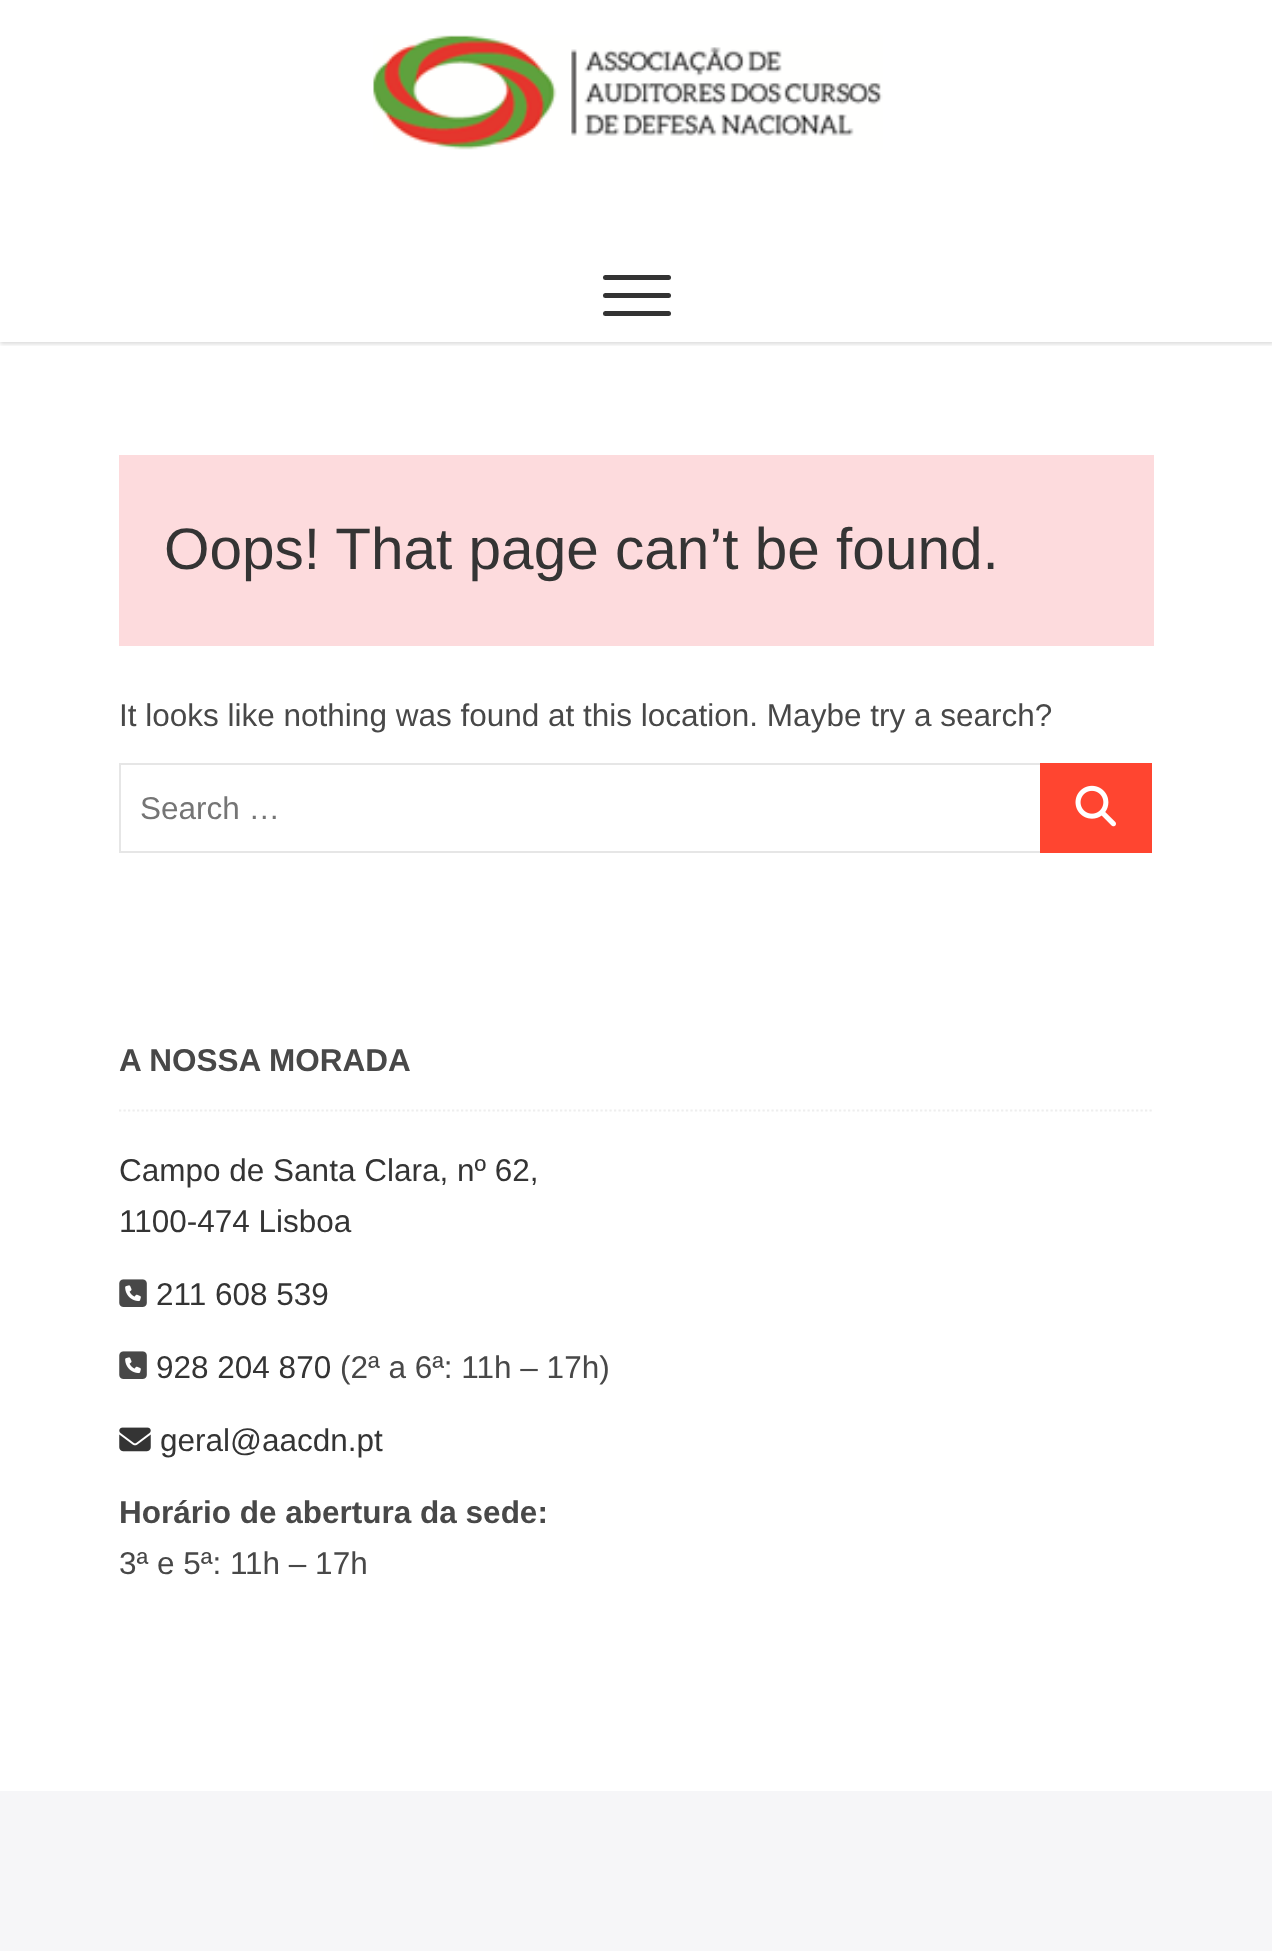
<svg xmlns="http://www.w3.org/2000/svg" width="1272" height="1951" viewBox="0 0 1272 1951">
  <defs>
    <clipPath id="clip1"><path d="M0 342h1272v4H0z"/></clipPath>
  </defs>
  <rect width="100%" height="100%" fill="#fff"/>
  <g clip-path="url(#clip1)">
    <path d="M0 0h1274v344H0z" fill="#00000026" filter="blur(2px)"/>
  </g>
  <image x="373" y="35" width="510" height="115" href="img/1.png"/>
  <rect x="603" y="293" width="68" height="5" rx="2.5" fill="#333"/>
  <rect x="603" y="275" width="68" height="5" rx="2.5" fill="#333"/>
  <rect x="603" y="311" width="68" height="5" rx="2.5" fill="#333"/>
  <path d="M119 455h1035v191H119z" fill="#fddbdd"/>
  <path d="M120 764h921v88H120z" fill="none" stroke="#e6e6e6" stroke-width="2"/>
  <path d="M1040 763h112v90H1040z" fill="#ff4530"/>
  <image x="1075" y="785" width="41" height="42" href="img/2.png"/>
  <path d="M119 1110.5H1154" fill="none" stroke="#eee" stroke-width="2.2" stroke-dasharray="2.25 2.25"/>
  <image x="119" y="1279" width="28" height="28" href="img/3.png"/>
  <image x="119" y="1351" width="28" height="28" href="img/3.png"/>
  <image x="119" y="1427" width="32" height="25" href="img/4.png"/>
  <path d="M0 1791h1272v160H0z" fill="#f6f6f8"/>
  <text x="164" y="569" font-family="Arimo" font-size="58.5" fill="#343434">Oops! That page can’t be found.</text>
  <text x="119" y="726" font-family="Arimo" font-size="31.5" fill="#484848">It looks like nothing was found at this location. Maybe try a search?</text>
  <text x="140" y="819" font-family="Arimo" font-size="31.5" fill="#757575">Search …</text>
  <text x="119" y="1071" font-family="Arimo" font-size="31.5" font-weight="bold" fill="#484848">A NOSSA MORADA</text>
  <g font-family="Arimo" font-size="31.5" fill="#343434">
    <text x="119" y="1181">Campo de Santa Clara, nº 62,</text>
    <text x="119" y="1232">1100-474 Lisboa</text>
    <text x="156" y="1305">211 608 539</text>
    <text x="156" y="1378">928 204 870</text>
  </g>
  <text x="340" y="1378" font-family="Arimo" font-size="31.5" fill="#484848">(2ª a 6ª: 11h – 17h)</text>
  <text x="160" y="1451" font-family="Arimo" font-size="31.5" fill="#343434">geral@aacdn.pt</text>
  <text x="119" y="1523" font-family="Arimo" font-size="31.5" font-weight="bold" fill="#484848">Horário de abertura da sede:</text>
  <text x="119" y="1574" font-family="Arimo" font-size="31.5" fill="#484848">3ª e 5ª: 11h – 17h</text>
</svg>
